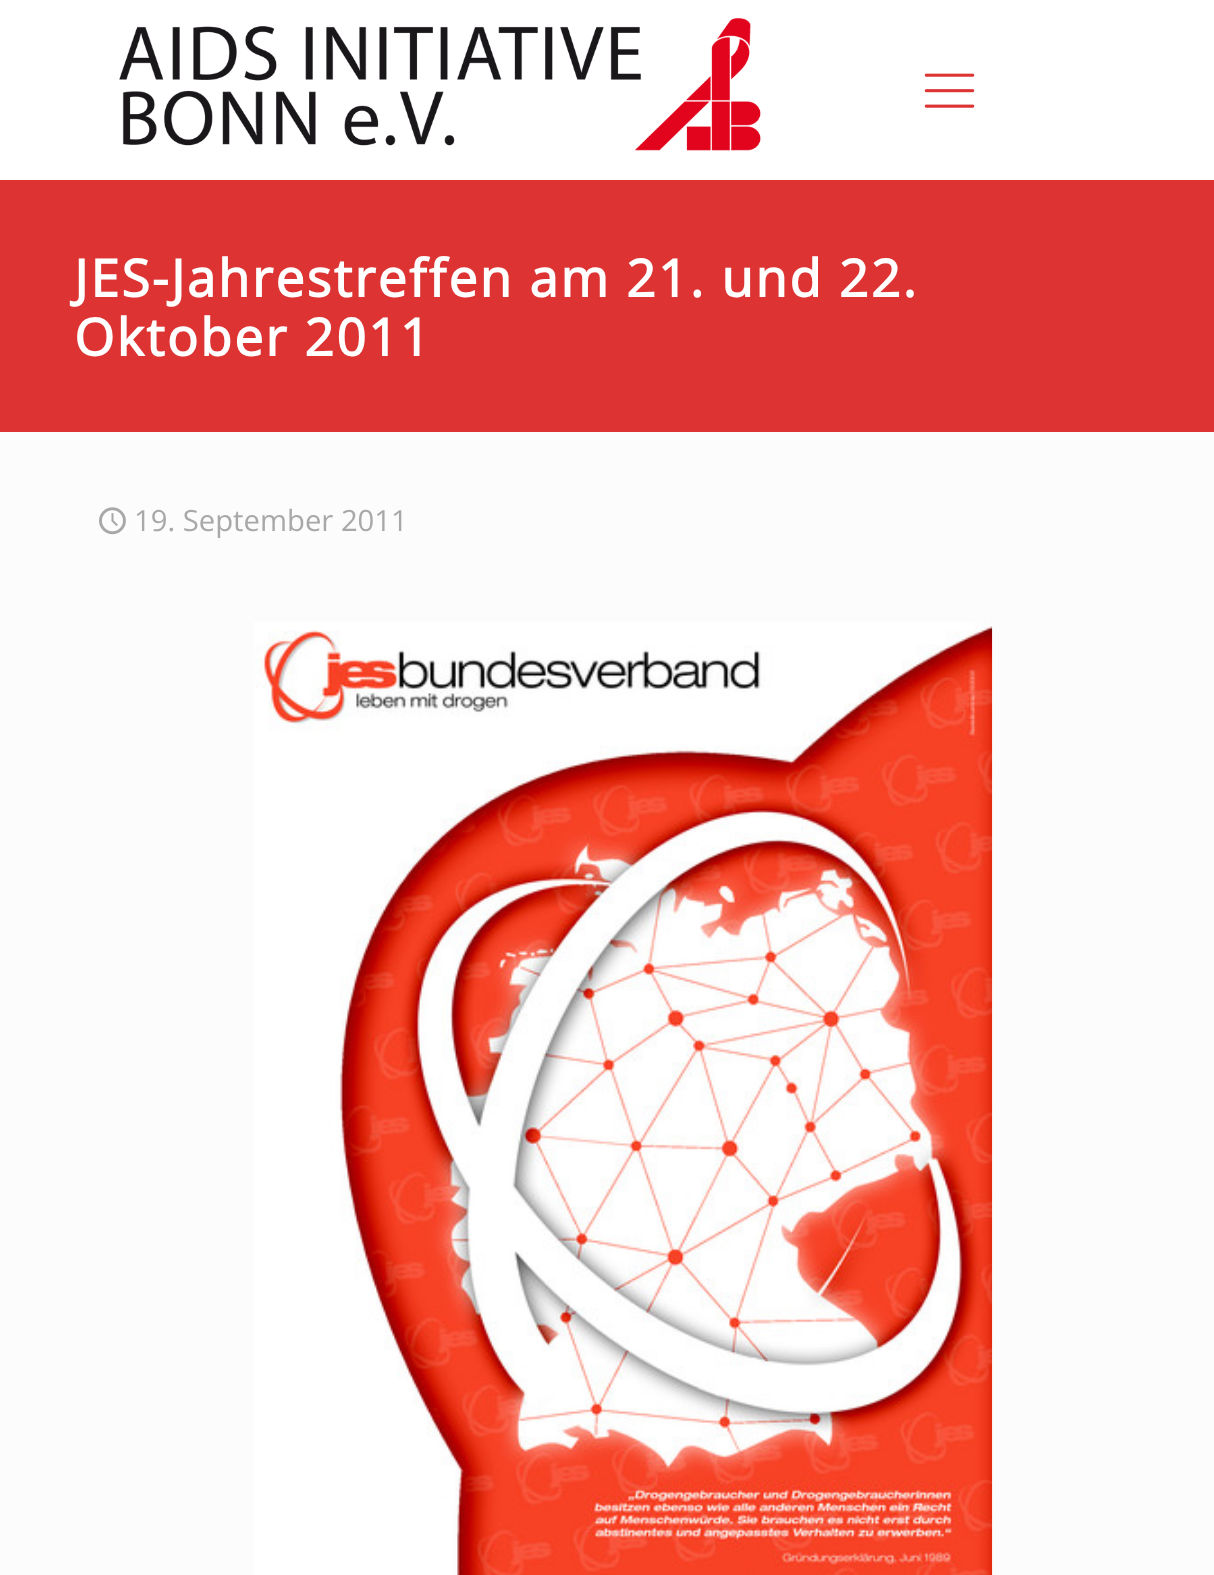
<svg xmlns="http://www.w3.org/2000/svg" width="1214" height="1575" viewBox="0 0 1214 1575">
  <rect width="100%" height="100%" fill="#fcfcfc"/>
  <path d="M0 0h1214v180H0z" fill="#fff"/>
  <image x="119" y="18" width="642" height="133" href="img/1.png"/>
  <image x="924" y="73" width="51" height="35" href="img/2.png"/>
  <path d="M0 180h1214v252H0z" fill="#d33"/>
  <image x="99" y="507" width="27" height="28" href="img/3.png"/>
  <image x="254" y="622" width="739" height="953" href="img/4.png"/>
  <g font-family="Open Sans" font-size="51.75" font-weight="bold" letter-spacing="2.25" fill="#fff">
    <text x="74" y="297">JES-Jahrestreffen am 21. und 22.</text>
    <text x="74" y="356">Oktober 2011</text>
  </g>
  <text x="134" y="531" font-family="Open Sans" font-size="29.25" fill="#a8a8a8">19. September 2011</text>
</svg>
